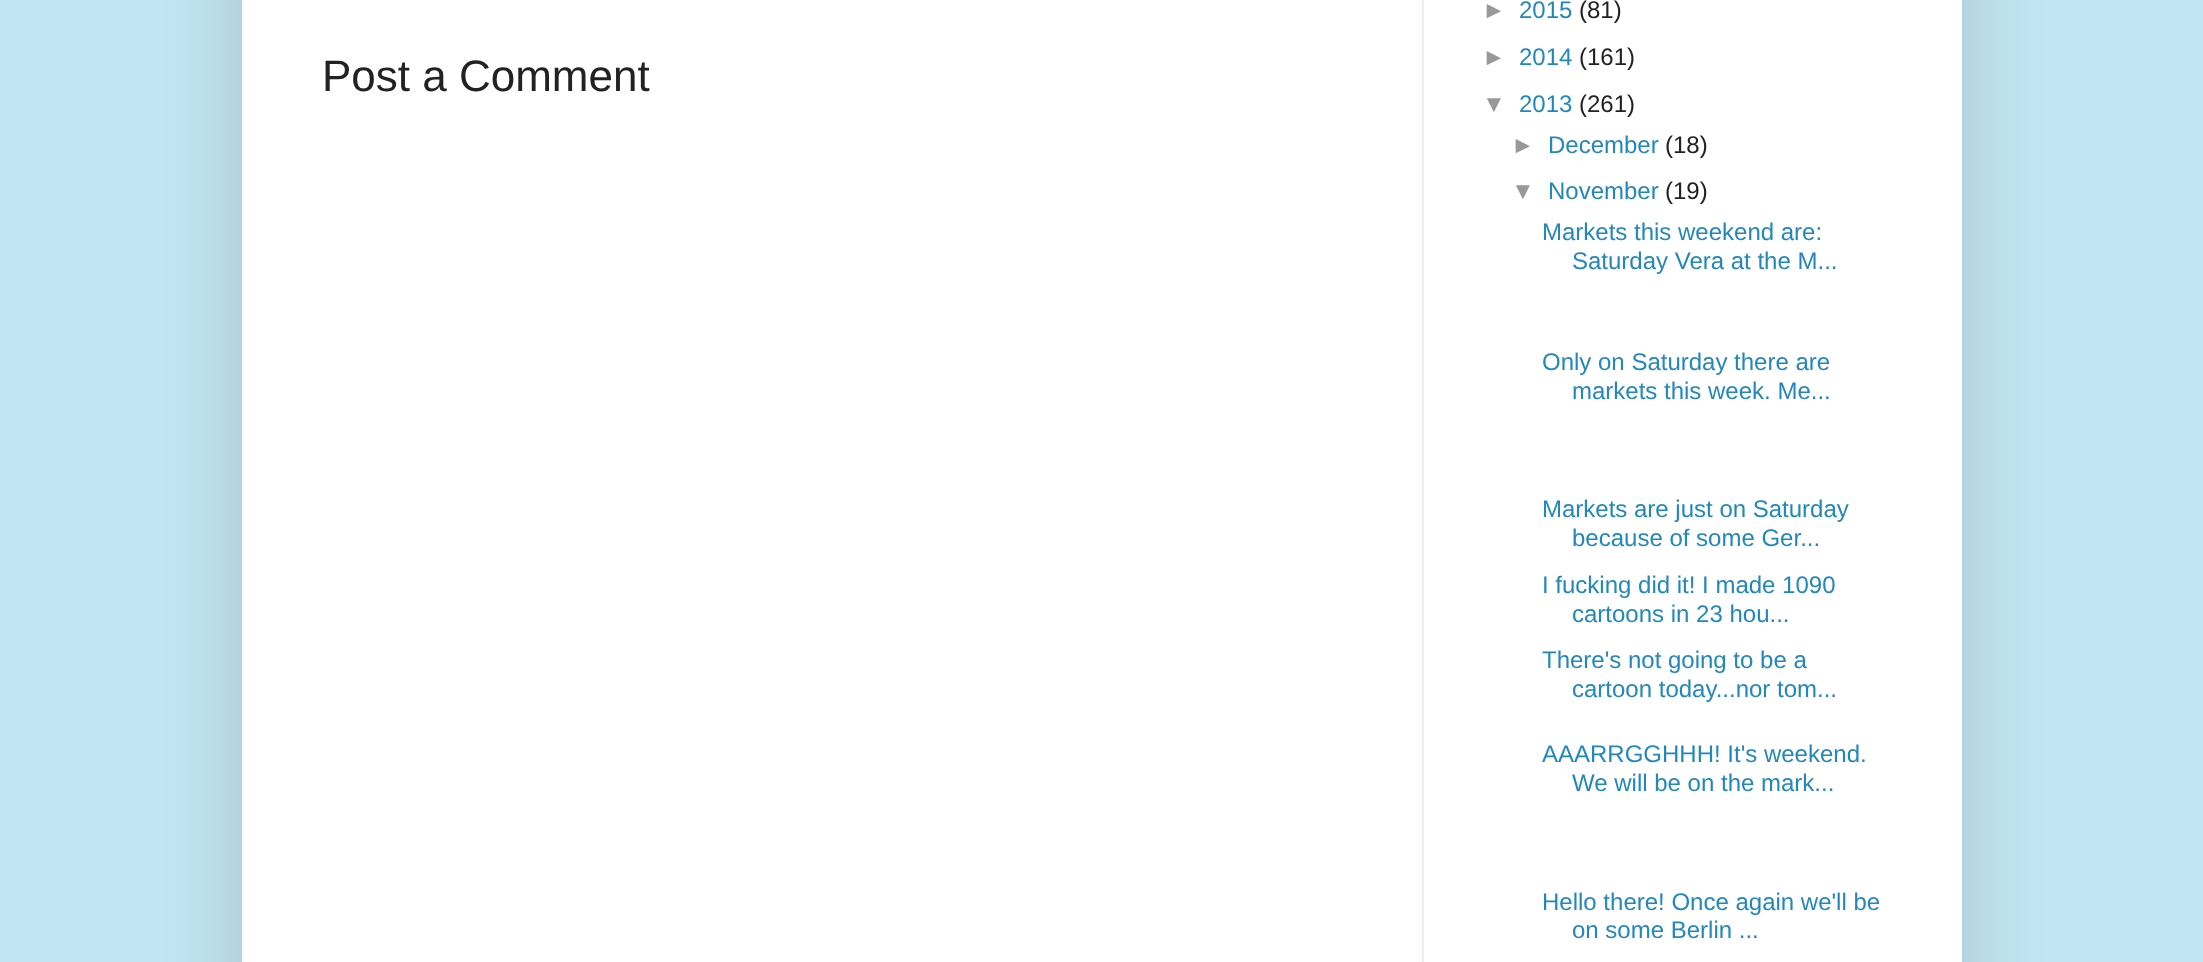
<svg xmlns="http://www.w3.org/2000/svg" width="2203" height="962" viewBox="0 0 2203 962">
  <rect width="100%" height="100%" fill="#c1e5f2"/>
  <path d="M242 -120h1720v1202H242z" fill="#00000026" filter="blur(40px)"/>
  <path d="M242 0h1720v962H242z" fill="#fff"/>
  <path d="M1422 0h2v962H1422z" fill="#eee"/>
  <text x="322" y="91" font-family="Liberation Sans" font-size="44" fill="#222">Post a Comment</text>
  <text x="1482" y="18" font-family="Liberation Sans" font-size="24" fill="#999">►</text>
  <text x="1519" y="18" font-family="Liberation Sans" font-size="24" fill="#28b">2015</text>
  <text x="1579" y="18" font-family="Liberation Sans" font-size="24" fill="#222">(81)</text>
  <text x="1482" y="65" font-family="Liberation Sans" font-size="24" fill="#999">►</text>
  <text x="1519" y="65" font-family="Liberation Sans" font-size="24" fill="#28b">2014</text>
  <text x="1579" y="65" font-family="Liberation Sans" font-size="24" fill="#222">(161)</text>
  <text x="1482" y="112" font-family="Liberation Sans" font-size="24" fill="#999">▼</text>
  <text x="1519" y="112" font-family="Liberation Sans" font-size="24" fill="#28b">2013</text>
  <text x="1579" y="112" font-family="Liberation Sans" font-size="24" fill="#222">(261)</text>
  <text x="1511" y="153" font-family="Liberation Sans" font-size="24" fill="#999">►</text>
  <text x="1548" y="153" font-family="Liberation Sans" font-size="24" fill="#28b">December</text>
  <text x="1665" y="153" font-family="Liberation Sans" font-size="24" fill="#222">(18)</text>
  <text x="1511" y="199" font-family="Liberation Sans" font-size="24" fill="#999">▼</text>
  <text x="1548" y="199" font-family="Liberation Sans" font-size="24" fill="#28b">November</text>
  <text x="1665" y="199" font-family="Liberation Sans" font-size="24" fill="#222">(19)</text>
  <g font-family="Liberation Sans" font-size="24" fill="#28b">
    <text x="1542" y="240">Markets this weekend are:</text>
    <text x="1572" y="269">Saturday Vera at the M...</text>
    <text x="1542" y="370">Only on Saturday there are</text>
    <text x="1572" y="399">markets this week. Me...</text>
    <text x="1542" y="517">Markets are just on Saturday</text>
    <text x="1572" y="546">because of some Ger...</text>
    <text x="1542" y="593">I fucking did it! I made 1090</text>
    <text x="1572" y="622">cartoons in 23 hou...</text>
    <text x="1542" y="668">There's not going to be a</text>
    <text x="1572" y="697">cartoon today...nor tom...</text>
    <text x="1542" y="762">AAARRGGHHH! It's weekend.</text>
    <text x="1572" y="791">We will be on the mark...</text>
    <text x="1542" y="910">Hello there! Once again we'll be</text>
    <text x="1572" y="938">on some Berlin ...</text>
  </g>
</svg>
